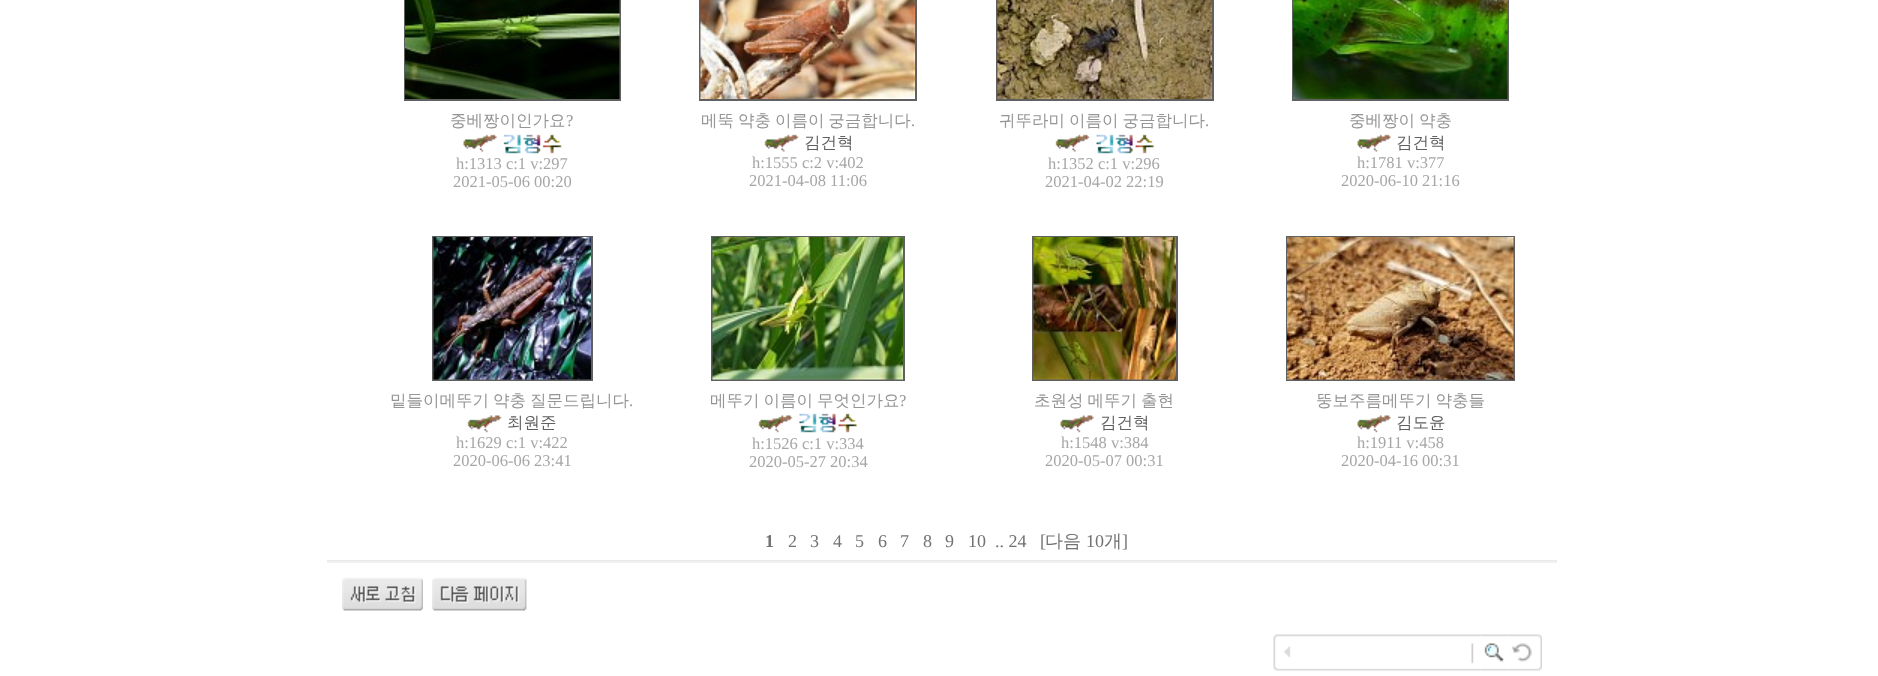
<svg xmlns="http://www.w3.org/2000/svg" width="1878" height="676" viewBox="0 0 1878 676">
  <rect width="100%" height="100%" fill="#fff"/>
  <path d="M405 -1h215v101H405z" fill="none" stroke="#606060" stroke-width="2"/>
  <image x="405" y="0" width="215" height="99" href="img/1.png"/>
  <image x="463" y="134" width="34" height="18" href="img/2.png"/>
  <image x="503" y="134" width="59" height="20" href="img/3.png"/>
  <path d="M700 -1h216v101H700z" fill="none" stroke="#606060" stroke-width="2"/>
  <image x="700" y="0" width="215" height="99" href="img/4.png"/>
  <image x="764" y="134" width="35" height="18" href="img/5.png"/>
  <path d="M997 -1h216v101H997z" fill="none" stroke="#606060" stroke-width="2"/>
  <image x="997" y="0" width="215" height="99" href="img/6.png"/>
  <image x="1055" y="134" width="35" height="18" href="img/7.png"/>
  <image x="1096" y="134" width="58" height="20" href="img/8.png"/>
  <path d="M1293 -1h215v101H1293z" fill="none" stroke="#606060" stroke-width="2"/>
  <image x="1293" y="0" width="215" height="99" href="img/9.png"/>
  <image x="1357" y="134" width="34" height="18" href="img/2.png"/>
  <path d="M433 237h159v143H433z" fill="none" stroke="#606060" stroke-width="2"/>
  <image x="433" y="237" width="158" height="143" href="img/10.png"/>
  <image x="467" y="415" width="35" height="18" href="img/11.png"/>
  <path d="M712 237h192v143H712z" fill="none" stroke="#606060" stroke-width="2"/>
  <image x="712" y="237" width="191" height="143" href="img/12.png"/>
  <image x="758" y="415" width="35" height="18" href="img/13.png"/>
  <image x="799" y="413" width="58" height="20" href="img/14.png"/>
  <path d="M1033 237h144v143H1033z" fill="none" stroke="#606060" stroke-width="2"/>
  <image x="1033" y="237" width="143" height="143" href="img/15.png"/>
  <image x="1060" y="415" width="34" height="18" href="img/16.png"/>
  <path d="M1287 237h227v143H1287z" fill="none" stroke="#606060" stroke-width="2"/>
  <image x="1287" y="237" width="227" height="143" href="img/17.png"/>
  <image x="1357" y="415" width="34" height="18" href="img/16.png"/>
  <path d="M327 560h1230v1H327z" fill="#eaeaea"/>
  <path d="M327 561h1230v2H327z" fill="#f0f0f0"/>
  <image x="342" y="577" width="81" height="34" href="img/18.png"/>
  <image x="432" y="577" width="95" height="34" href="img/19.png"/>
  <image x="1273" y="634" width="23" height="37" href="img/20.png"/>
  <image x="1296" y="634" width="171" height="37" href="img/21.png"/>
  <image x="1467" y="634" width="14" height="37" href="img/22.png"/>
  <image x="1480" y="634" width="28" height="37" href="img/23.png"/>
  <image x="1507" y="634" width="35" height="37" href="img/24.png"/>
  <text x="450" y="126" font-family="WenQuanYi Zen Hei" font-size="16.5" font-weight="500" fill="#959595">중베짱이인가요</text>
  <text x="566" y="126" font-family="Liberation Serif" font-size="16.5" fill="#959595">?</text>
  <g font-family="Liberation Serif" font-size="16.5" fill="#a6a6a6">
    <text x="456" y="169">h:1313 c:1 v:297</text>
    <text x="453" y="187">2021-05-06 00:20</text>
  </g>
  <text x="701" y="126" word-spacing="-1" font-family="WenQuanYi Zen Hei" font-size="16.5" font-weight="500" fill="#959595">메뚝 약충 이름이 궁금합니다</text>
  <text x="911" y="126" font-family="Liberation Serif" font-size="16.5" fill="#959595">.</text>
  <text x="804" y="148" font-family="WenQuanYi Zen Hei" font-size="16.5" font-weight="500" fill="#606060">김건혁</text>
  <g font-family="Liberation Serif" font-size="16.5" fill="#a6a6a6">
    <text x="752" y="168">h:1555 c:2 v:402</text>
    <text x="749" y="186">2021-04-08 11:06</text>
  </g>
  <text x="999" y="126" word-spacing="-1" font-family="WenQuanYi Zen Hei" font-size="16.5" font-weight="500" fill="#959595">귀뚜라미 이름이 궁금합니다</text>
  <text x="1205" y="126" font-family="Liberation Serif" font-size="16.5" fill="#959595">.</text>
  <g font-family="Liberation Serif" font-size="16.5" fill="#a6a6a6">
    <text x="1048" y="169">h:1352 c:1 v:296</text>
    <text x="1045" y="187">2021-04-02 22:19</text>
  </g>
  <text x="1349" y="126" word-spacing="-1" font-family="WenQuanYi Zen Hei" font-size="16.5" font-weight="500" fill="#959595">중베짱이 약충</text>
  <text x="1396" y="148" font-family="WenQuanYi Zen Hei" font-size="16.5" font-weight="500" fill="#606060">김건혁</text>
  <g font-family="Liberation Serif" font-size="16.5" fill="#a6a6a6">
    <text x="1357" y="168">h:1781 v:377</text>
    <text x="1341" y="186">2020-06-10 21:16</text>
  </g>
  <text x="390" y="406" word-spacing="-1" font-family="WenQuanYi Zen Hei" font-size="16.5" font-weight="500" fill="#959595">밑들이메뚜기 약충 질문드립니다</text>
  <text x="629" y="406" font-family="Liberation Serif" font-size="16.5" fill="#959595">.</text>
  <text x="507" y="428" font-family="WenQuanYi Zen Hei" font-size="16.5" font-weight="500" fill="#606060">최원준</text>
  <g font-family="Liberation Serif" font-size="16.5" fill="#a6a6a6">
    <text x="456" y="448">h:1629 c:1 v:422</text>
    <text x="453" y="466">2020-06-06 23:41</text>
  </g>
  <g font-family="WenQuanYi Zen Hei" font-size="16.5" font-weight="500" fill="#959595">
    <text x="710" y="406" word-spacing="-1">메뚜기 이름이</text>
    <text x="817" y="406">무엇인가요</text>
  </g>
  <text x="899" y="406" font-family="Liberation Serif" font-size="16.5" fill="#959595">?</text>
  <g font-family="Liberation Serif" font-size="16.5" fill="#a6a6a6">
    <text x="752" y="449">h:1526 c:1 v:334</text>
    <text x="749" y="467">2020-05-27 20:34</text>
  </g>
  <text x="1034" y="406" word-spacing="-1" font-family="WenQuanYi Zen Hei" font-size="16.5" font-weight="500" fill="#959595">초원성 메뚜기 출현</text>
  <text x="1100" y="428" font-family="WenQuanYi Zen Hei" font-size="16.5" font-weight="500" fill="#606060">김건혁</text>
  <g font-family="Liberation Serif" font-size="16.5" fill="#a6a6a6">
    <text x="1061" y="448">h:1548 v:384</text>
    <text x="1045" y="466">2020-05-07 00:31</text>
  </g>
  <text x="1316" y="406" word-spacing="-1" font-family="WenQuanYi Zen Hei" font-size="16.5" font-weight="500" fill="#959595">뚱보주름메뚜기 약충들</text>
  <text x="1396" y="428" font-family="WenQuanYi Zen Hei" font-size="16.5" font-weight="500" fill="#606060">김도윤</text>
  <g font-family="Liberation Serif" font-size="16.5" fill="#a6a6a6">
    <text x="1357" y="448">h:1911 v:458</text>
    <text x="1341" y="466">2020-04-16 00:31</text>
  </g>
  <text x="765" y="547" font-family="Liberation Serif" font-size="18" font-weight="bold" fill="#727272">1</text>
  <g font-family="Liberation Serif" font-size="18" fill="#727272">
    <text x="788" y="547">2</text>
    <text x="810" y="547">3</text>
    <text x="833" y="547">4</text>
    <text x="855" y="547">5</text>
    <text x="878" y="547">6</text>
    <text x="900" y="547">7</text>
    <text x="923" y="547">8</text>
    <text x="945" y="547">9</text>
    <text x="968" y="547">10</text>
    <text x="995" y="547">.. 24</text>
    <text x="1040" y="547">[</text>
  </g>
  <text x="1045" y="547" font-family="WenQuanYi Zen Hei" font-size="18" font-weight="500" fill="#727272">다음</text>
  <text x="1086" y="547" font-family="Liberation Serif" font-size="18" fill="#727272">10</text>
  <text x="1104" y="547" font-family="WenQuanYi Zen Hei" font-size="18" font-weight="500" fill="#727272">개</text>
  <text x="1122" y="547" font-family="Liberation Serif" font-size="18" fill="#727272">]</text>
</svg>
